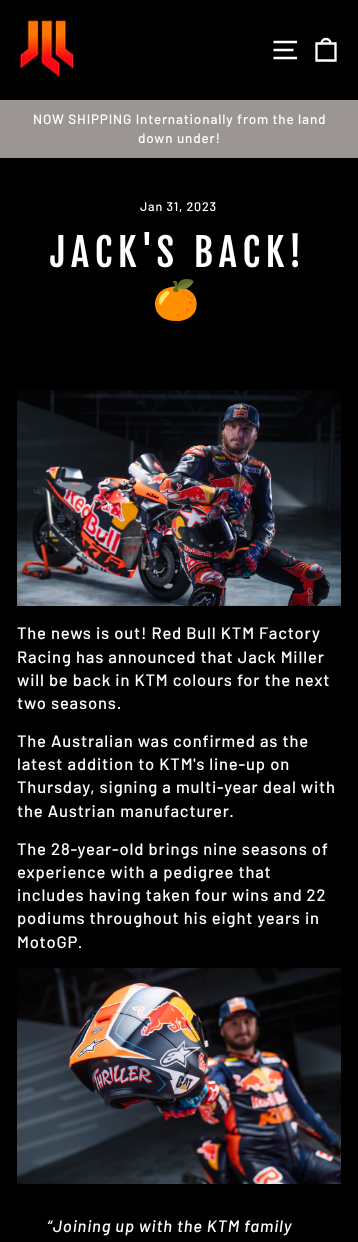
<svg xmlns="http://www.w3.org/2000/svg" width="358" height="1242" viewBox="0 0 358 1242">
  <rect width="100%" height="100%" fill="#000"/>
  <image x="17" y="18" width="58" height="63" href="img/1.png"/>
  <path d="M273.5 42H297M273.5 50H293.5M273.5 58H297" fill="none" stroke="#fff" stroke-width="2.3"/>
  <path d="M316.5 43.5H335.5V60.5H316.5ZM321.5 43.5C321.5 37.5 330.5 37.5 330.5 43.5" fill="none" stroke="#fff" stroke-width="2.3"/>
  <path d="M0 100h358v58H0z" fill="#9b9593"/>
  <image x="17" y="390" width="324" height="216" href="img/2.png"/>
  <image x="17" y="968" width="324" height="216" href="img/3.png"/>
  <g font-family="Barlow" font-size="13.5" font-weight="500" letter-spacing="0.85" fill="#fff">
    <text x="33" y="124">NOW SHIPPING Internationally from the land</text>
    <text x="138" y="143">down under!</text>
  </g>
  <text x="140" y="211" font-family="Barlow" font-size="12.5" font-weight="500" letter-spacing="0.85" fill="#fff">Jan 31, 2023</text>
  <text x="50" y="267" font-family="Fjalla One" font-size="38.25" letter-spacing="5.75" fill="#fff">JACK'S BACK!</text>
  <text x="152" y="313" font-family="Noto Color Emoji" font-size="38.25" letter-spacing="5.75" fill="#fff">🍊</text>
  <g font-family="Barlow" font-size="16.6" font-weight="500" letter-spacing="0.85" fill="#fff">
    <text x="17" y="639">The news is out! Red Bull KTM Factory</text>
    <text x="17" y="663">Racing has announced that Jack Miller</text>
    <text x="17" y="686">will be back in KTM colours for the next</text>
    <text x="17" y="709">two seasons.</text>
    <text x="17" y="747">The Australian was confirmed as the</text>
    <text x="17" y="770">latest addition to KTM's line-up on</text>
    <text x="17" y="793">Thursday, signing a multi-year deal with</text>
    <text x="17" y="817">the Austrian manufacturer.</text>
    <text x="17" y="855">The 28-year-old brings nine seasons of</text>
    <text x="17" y="878">experience with a pedigree that</text>
    <text x="17" y="901">includes having taken four wins and 22</text>
    <text x="17" y="924">podiums throughout his eight years in</text>
    <text x="17" y="948">MotoGP.</text>
  </g>
  <text x="47" y="1232" font-family="Barlow" font-size="16.6" font-weight="500" font-style="italic" letter-spacing="0.85" fill="#fff">“Joining up with the KTM family</text>
</svg>
